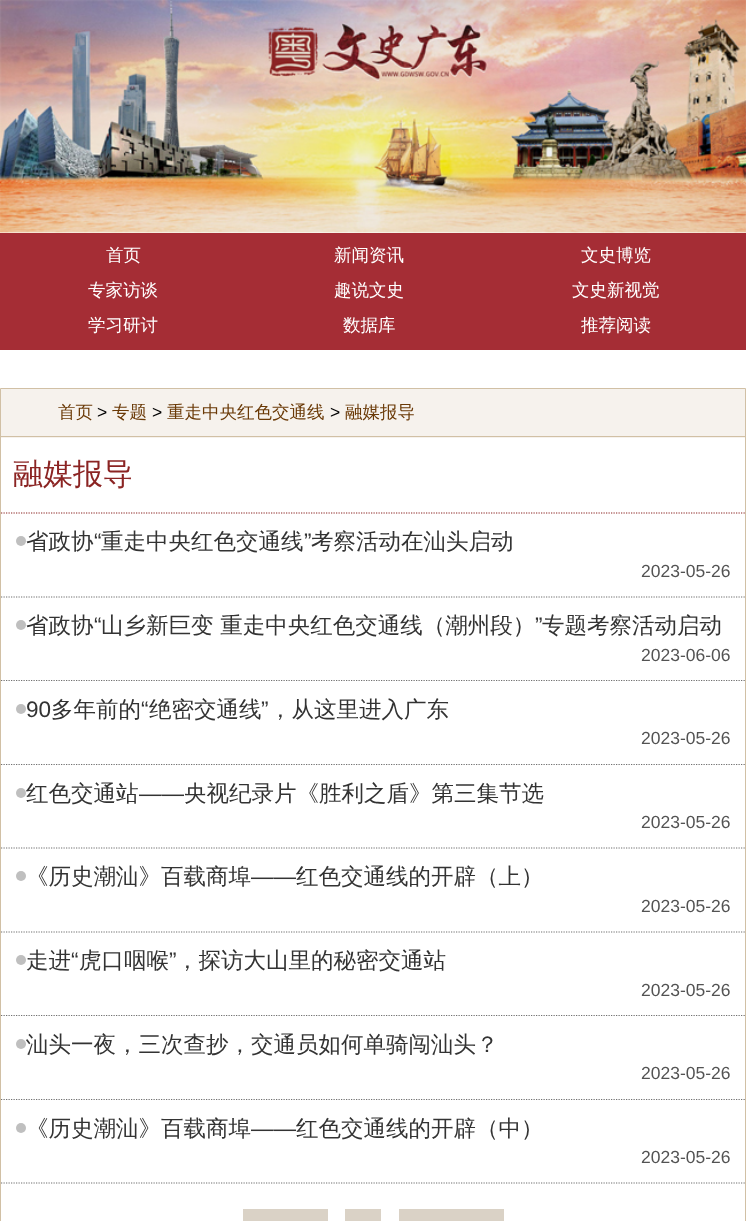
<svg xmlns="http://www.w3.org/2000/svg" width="746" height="1221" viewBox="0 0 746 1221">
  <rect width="100%" height="100%" fill="#fff"/>
  <image x="0" y="0" width="746" height="233" href="img/1.png"/>
  <path d="M0 233h746v117H0z" fill="#a52d35"/>
  <path d="M0.5 388.5h745v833H0.5z" fill="none" stroke="#d1c0a5"/>
  <path d="M1 389h744v49H1z" fill="#f6f2ed"/>
  <path d="M1 436h744v1H1z" fill="#d1c0a5"/>
  <path d="M1 513H745" fill="none" stroke="#8b2423" stroke-width="1.2" stroke-dasharray="1.25 1.25"/>
  <path d="M1 597H745" fill="none" stroke="#707070" stroke-width="1.2" stroke-dasharray="1.25 1.25"/>
  <circle cx="21" cy="541" r="5" fill="#bfbfbf"/>
  <path d="M1 680.5H745" fill="none" stroke="#707070" stroke-width="1.2" stroke-dasharray="1.25 1.25"/>
  <circle cx="21" cy="625" r="5" fill="#bfbfbf"/>
  <path d="M1 764.5H745" fill="none" stroke="#707070" stroke-width="1.2" stroke-dasharray="1.25 1.25"/>
  <circle cx="21" cy="709" r="5" fill="#bfbfbf"/>
  <path d="M1 848H745" fill="none" stroke="#707070" stroke-width="1.2" stroke-dasharray="1.25 1.25"/>
  <circle cx="21" cy="793" r="5" fill="#bfbfbf"/>
  <path d="M1 932H745" fill="none" stroke="#707070" stroke-width="1.2" stroke-dasharray="1.25 1.25"/>
  <circle cx="21" cy="876" r="5" fill="#bfbfbf"/>
  <path d="M1 1015.5H745" fill="none" stroke="#707070" stroke-width="1.2" stroke-dasharray="1.25 1.25"/>
  <circle cx="21" cy="960" r="5" fill="#bfbfbf"/>
  <path d="M1 1099.5H745" fill="none" stroke="#707070" stroke-width="1.2" stroke-dasharray="1.25 1.25"/>
  <circle cx="21" cy="1044" r="5" fill="#bfbfbf"/>
  <path d="M1 1183H745" fill="none" stroke="#707070" stroke-width="1.2" stroke-dasharray="1.25 1.25"/>
  <circle cx="21" cy="1128" r="5" fill="#bfbfbf"/>
  <path d="M243 1209h85v12H243z" fill="#dad2c6"/>
  <path d="M345 1209h36v12H345z" fill="#dad2c6"/>
  <path d="M399 1209h105v12H399z" fill="#dad2c6"/>
  <g font-family="WenQuanYi Zen Hei" font-size="17.5" font-weight="500" fill="#fff">
    <text x="106" y="261">首页</text>
    <text x="334" y="261">新闻资讯</text>
    <text x="581" y="261">文史博览</text>
    <text x="88" y="296">专家访谈</text>
    <text x="334" y="296">趣说文史</text>
    <text x="572" y="296">文史新视觉</text>
    <text x="88" y="331">学习研讨</text>
    <text x="343" y="331">数据库</text>
    <text x="581" y="331">推荐阅读</text>
  </g>
  <text x="58" y="418" font-family="WenQuanYi Zen Hei" font-size="17.5" font-weight="500" fill="#6a3906">首页</text>
  <text x="97" y="418" font-family="Liberation Sans" font-size="17.5" fill="#000">&gt;</text>
  <text x="112" y="418" font-family="WenQuanYi Zen Hei" font-size="17.5" font-weight="500" fill="#6a3906">专题</text>
  <text x="152" y="418" font-family="Liberation Sans" font-size="17.5" fill="#000">&gt;</text>
  <text x="167" y="418" font-family="WenQuanYi Zen Hei" font-size="17.5" font-weight="500" fill="#6a3906">重走中央红色交通线</text>
  <text x="330" y="418" font-family="Liberation Sans" font-size="17.5" fill="#000">&gt;</text>
  <text x="345" y="418" font-family="WenQuanYi Zen Hei" font-size="17.5" font-weight="500" fill="#6a3906">融媒报导</text>
  <text x="13" y="484" font-family="WenQuanYi Zen Hei" font-size="30" font-weight="500" fill="#8b2423">融媒报导</text>
  <text x="26" y="549" font-family="WenQuanYi Zen Hei" font-size="22.5" font-weight="500" fill="#333">省政协</text>
  <text x="94" y="549" font-family="Liberation Sans" font-size="22.5" fill="#333">“</text>
  <text x="101" y="549" font-family="WenQuanYi Zen Hei" font-size="22.5" font-weight="500" fill="#333">重走中央红色交通线</text>
  <text x="304" y="549" font-family="Liberation Sans" font-size="22.5" fill="#333">”</text>
  <text x="311" y="549" font-family="WenQuanYi Zen Hei" font-size="22.5" font-weight="500" fill="#333">考察活动在汕头启动</text>
  <text x="641" y="577" font-family="Liberation Sans" font-size="17.5" fill="#535353">2023-05-26</text>
  <text x="26" y="633" font-family="WenQuanYi Zen Hei" font-size="22.5" font-weight="500" fill="#333">省政协</text>
  <text x="94" y="633" font-family="Liberation Sans" font-size="22.5" fill="#333">“</text>
  <text x="101" y="633" font-family="WenQuanYi Zen Hei" font-size="22.5" font-weight="500" fill="#333">山乡新巨变 重走中央红色交通线（潮州段）</text>
  <text x="535" y="633" font-family="Liberation Sans" font-size="22.5" fill="#333">”</text>
  <text x="542" y="633" font-family="WenQuanYi Zen Hei" font-size="22.5" font-weight="500" fill="#333">专题考察活动启动</text>
  <text x="641" y="661" font-family="Liberation Sans" font-size="17.5" fill="#535353">2023-06-06</text>
  <text x="26" y="717" font-family="Liberation Sans" font-size="22.5" fill="#333">90</text>
  <text x="51" y="717" font-family="WenQuanYi Zen Hei" font-size="22.5" font-weight="500" fill="#333">多年前的</text>
  <text x="141" y="717" font-family="Liberation Sans" font-size="22.5" fill="#333">“</text>
  <text x="149" y="717" font-family="WenQuanYi Zen Hei" font-size="22.5" font-weight="500" fill="#333">绝密交通线</text>
  <text x="261" y="717" font-family="Liberation Sans" font-size="22.5" fill="#333">”</text>
  <text x="269" y="717" font-family="WenQuanYi Zen Hei" font-size="22.5" font-weight="500" fill="#333">，从这里进入广东</text>
  <text x="641" y="744" font-family="Liberation Sans" font-size="17.5" fill="#535353">2023-05-26</text>
  <text x="26" y="801" font-family="WenQuanYi Zen Hei" font-size="22.5" font-weight="500" fill="#333">红色交通站</text>
  <text x="139" y="801" font-family="Liberation Sans" font-size="22.5" fill="#333">——</text>
  <text x="184" y="801" font-family="WenQuanYi Zen Hei" font-size="22.5" font-weight="500" fill="#333">央视纪录片《胜利之盾》第三集节选</text>
  <text x="641" y="828" font-family="Liberation Sans" font-size="17.5" fill="#535353">2023-05-26</text>
  <text x="26" y="884" font-family="WenQuanYi Zen Hei" font-size="22.5" font-weight="500" fill="#333">《历史潮汕》百载商埠</text>
  <text x="251" y="884" font-family="Liberation Sans" font-size="22.5" fill="#333">——</text>
  <text x="296" y="884" font-family="WenQuanYi Zen Hei" font-size="22.5" font-weight="500" fill="#333">红色交通线的开辟（上）</text>
  <text x="641" y="912" font-family="Liberation Sans" font-size="17.5" fill="#535353">2023-05-26</text>
  <text x="26" y="968" font-family="WenQuanYi Zen Hei" font-size="22.5" font-weight="500" fill="#333">走进</text>
  <text x="71" y="968" font-family="Liberation Sans" font-size="22.5" fill="#333">“</text>
  <text x="79" y="968" font-family="WenQuanYi Zen Hei" font-size="22.5" font-weight="500" fill="#333">虎口咽喉</text>
  <text x="169" y="968" font-family="Liberation Sans" font-size="22.5" fill="#333">”</text>
  <text x="176" y="968" font-family="WenQuanYi Zen Hei" font-size="22.5" font-weight="500" fill="#333">，探访大山里的秘密交通站</text>
  <text x="641" y="996" font-family="Liberation Sans" font-size="17.5" fill="#535353">2023-05-26</text>
  <text x="26" y="1052" font-family="WenQuanYi Zen Hei" font-size="22.5" font-weight="500" fill="#333">汕头一夜，三次查抄，交通员如何单骑闯汕头？</text>
  <text x="641" y="1079" font-family="Liberation Sans" font-size="17.5" fill="#535353">2023-05-26</text>
  <text x="26" y="1136" font-family="WenQuanYi Zen Hei" font-size="22.5" font-weight="500" fill="#333">《历史潮汕》百载商埠</text>
  <text x="251" y="1136" font-family="Liberation Sans" font-size="22.5" fill="#333">——</text>
  <text x="296" y="1136" font-family="WenQuanYi Zen Hei" font-size="22.5" font-weight="500" fill="#333">红色交通线的开辟（中）</text>
  <text x="641" y="1163" font-family="Liberation Sans" font-size="17.5" fill="#535353">2023-05-26</text>
</svg>
